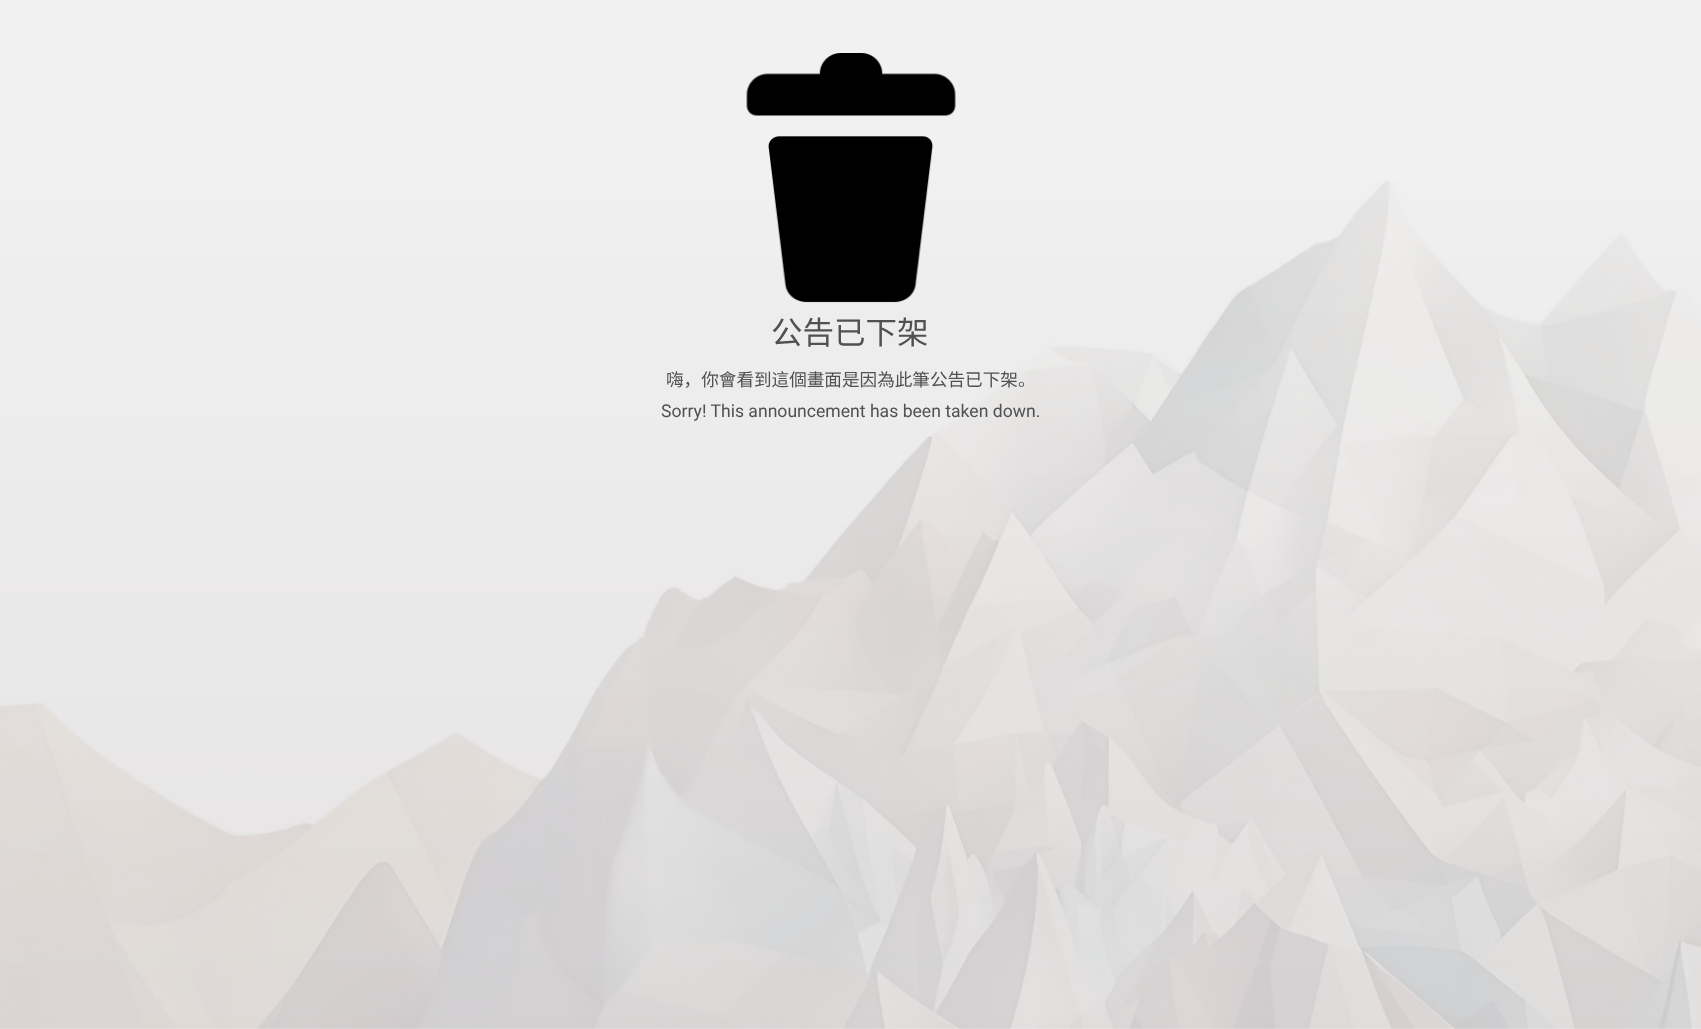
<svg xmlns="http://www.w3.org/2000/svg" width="1701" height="1029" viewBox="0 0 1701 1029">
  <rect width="100%" height="100%" fill="#f1f1f1"/>
  <image x="0" y="180" width="1701" height="849" href="img/1.png"/>
  <image x="746" y="53" width="210" height="250" href="img/2.png"/>
  <text x="771" y="344" font-family="Noto Sans CJK SC" font-size="31.5" fill="#515151">公告已下架</text>
  <text x="666" y="386" font-family="Noto Sans CJK SC" font-size="17.6" fill="#515151">嗨，你會看到這個畫面是因為此筆公告已下架。</text>
  <text x="661" y="417" font-family="Roboto" font-size="17.6" fill="#515151">Sorry! This announcement has been taken down.</text>
</svg>
